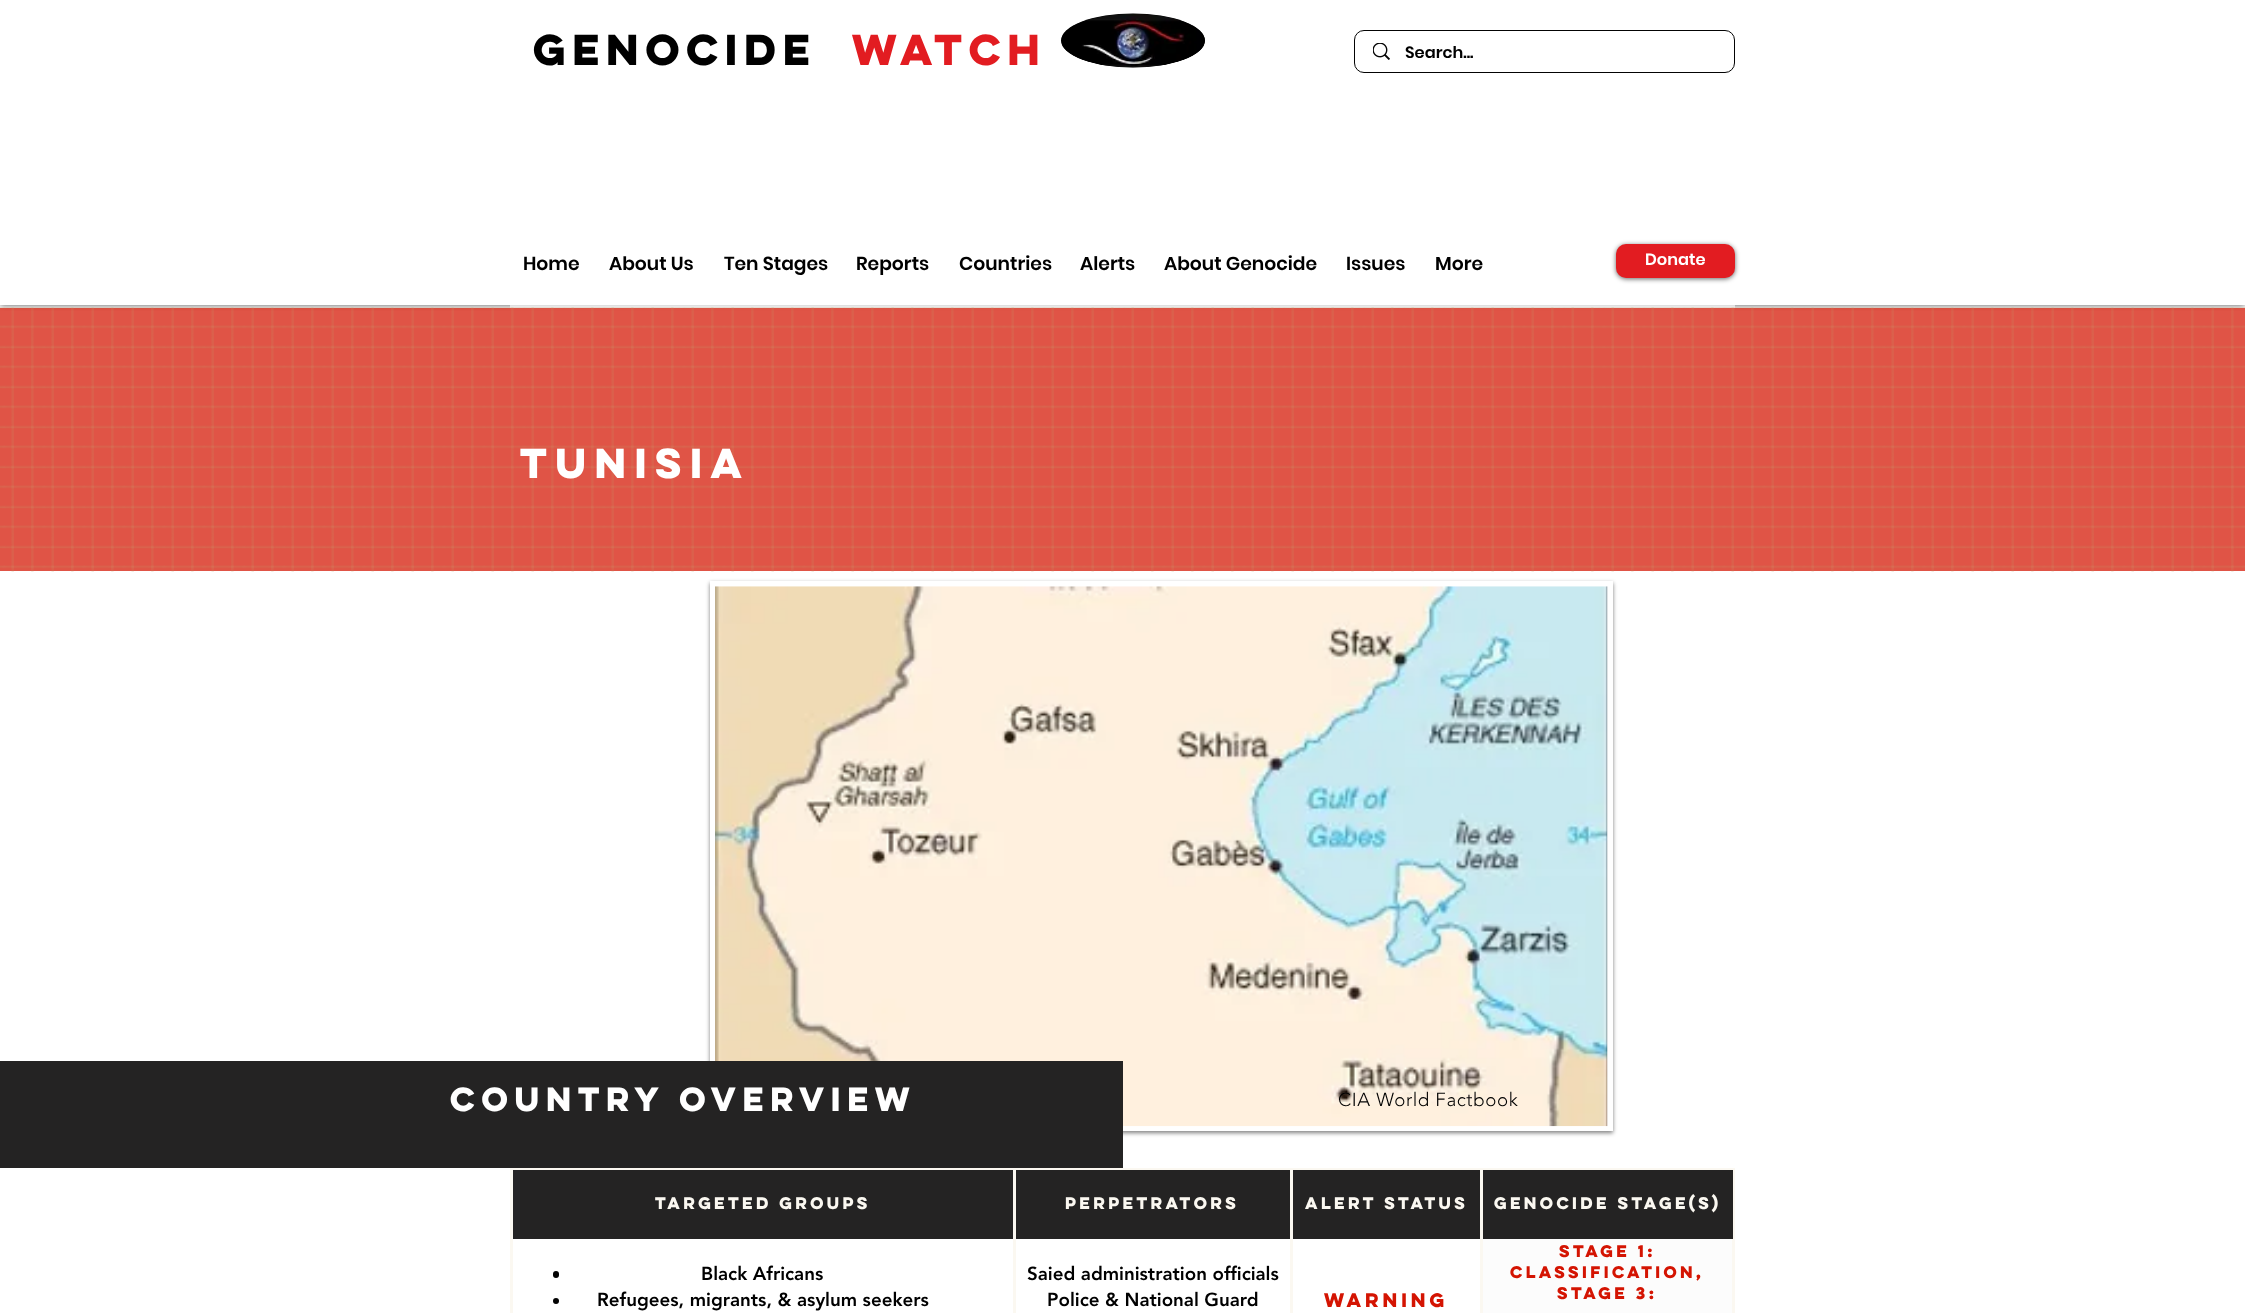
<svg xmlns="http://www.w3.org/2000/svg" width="2245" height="1313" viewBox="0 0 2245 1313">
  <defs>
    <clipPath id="clip1"><path d="M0 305h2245v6H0z"/></clipPath>
  </defs>
  <rect width="100%" height="100%" fill="#fff"/>
  <g clip-path="url(#clip1)">
    <path d="M0 0h2245v305H0z" fill="#000000b3" filter="blur(3px)"/>
  </g>
  <ellipse cx="1133" cy="40.5" rx="72" ry="27" fill="#030303"/>
  <image x="1061" y="14" width="144" height="54" href="img/1.png"/>
  <rect x="1354.5" y="30.5" width="380" height="42" rx="9.5" fill="none" stroke="#030303"/>
  <image x="1373" y="43" width="17" height="17" href="img/2.png"/>
  <rect x="1616" y="245" width="119" height="34" rx="10" fill="#00000099" filter="blur(2.5px)"/>
  <rect x="1616" y="244" width="119" height="34" rx="10" fill="#e21c21"/>
  <path d="M510 305h1225v6H510z" fill="#ffffff99"/>
  <path d="M0 308h2245v263H0z" fill="#d41402ba"/>
  <image x="0" y="307" width="2245" height="265" href="img/3.png"/>
  <path d="M710 583h903v550H710z" fill="#00000080" filter="blur(2px)"/>
  <path d="M710 581h903v550H710z" fill="#fff"/>
  <image x="715" y="586" width="893" height="541" href="img/4.png"/>
  <path d="M0 1061h1123v107H0z" fill="#242323"/>
  <path d="M511.5 1169.5h1222v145H511.5z" fill="none" stroke="#fbf8f1" stroke-width="3"/>
  <path d="M513 1170h1220v69H513z" fill="#242323"/>
  <path d="M1013 1170h3v143H1013z" fill="#fbf8f1"/>
  <path d="M1290 1170h3v143H1290z" fill="#fbf8f1"/>
  <path d="M1480 1170h3v143H1480z" fill="#fbf8f1"/>
  <rect x="553" y="1271" width="6" height="7" rx="3" fill="#030303"/>
  <circle cx="556" cy="1301" r="3" fill="#030303"/>
  <path d="M1483 1239h249v74H1483z" fill="#e2dfdf1a"/>
  <text x="533" y="65" font-family="'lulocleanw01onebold'" font-size="38.75" font-weight="bold" letter-spacing="-2" fill="#000">GENOCIDE</text>
  <text x="852" y="65" font-family="'lulocleanw01onebold'" font-size="38.75" font-weight="bold" letter-spacing="-2" fill="#e21c21">WATCH</text>
  <text x="1405" y="58" font-family="Poppins" font-size="16.25" font-weight="600" fill="#000">Search...</text>
  <g font-family="Poppins" font-size="18.75" font-weight="600" fill="#000">
    <text x="523" y="270">Home</text>
    <text x="609" y="270">About Us</text>
    <text x="724" y="270">Ten Stages</text>
    <text x="856" y="270">Reports</text>
    <text x="959" y="270">Countries</text>
    <text x="1080" y="270">Alerts</text>
    <text x="1164" y="270">About Genocide</text>
    <text x="1346" y="270">Issues</text>
    <text x="1435" y="270">More</text>
  </g>
  <text x="1645" y="265" font-family="Poppins" font-size="16.25" font-weight="600" fill="#fff">Donate</text>
  <text x="520" y="478" font-family="'lulocleanw01onebold'" font-size="37.5" font-weight="bold" fill="#fff">Tunisia</text>
  <text x="450" y="1111" font-family="'lulocleanw01onebold'" font-size="30" font-weight="bold" fill="#fff">Country Overview</text>
  <text x="1338" y="1106" font-family="'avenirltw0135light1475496'" font-size="18.75" font-weight="300" letter-spacing="0.6" fill="#000">CIA World Factbook</text>
  <g font-family="'lulocleanw01onebold'" font-size="15" font-weight="bold" fill="#fbf8f1">
    <text x="655" y="1209">Targeted Groups</text>
    <text x="1065" y="1209">Perpetrators</text>
    <text x="1305" y="1209">Alert Status</text>
    <text x="1494" y="1209">Genocide Stage(s)</text>
  </g>
  <g font-family="'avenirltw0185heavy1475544'" font-size="18.75" font-weight="900" fill="#000">
    <text x="701" y="1280">Black Africans</text>
    <text x="597" y="1306">Refugees, migrants, &amp; asylum seekers</text>
    <text x="1027" y="1280">Saied administration officials</text>
    <text x="1047" y="1306">Police &amp; National Guard</text>
  </g>
  <text x="1324" y="1307" font-family="'lulocleanw01onebold'" font-size="17.5" font-weight="bold" fill="#d41402">Warning</text>
  <g font-family="'lulocleanw01onebold'" font-size="15" font-weight="bold" fill="#d41402">
    <text x="1559" y="1257">Stage 1:</text>
    <text x="1510" y="1278">Classification,</text>
    <text x="1557" y="1299">Stage 3:</text>
  </g>
</svg>
